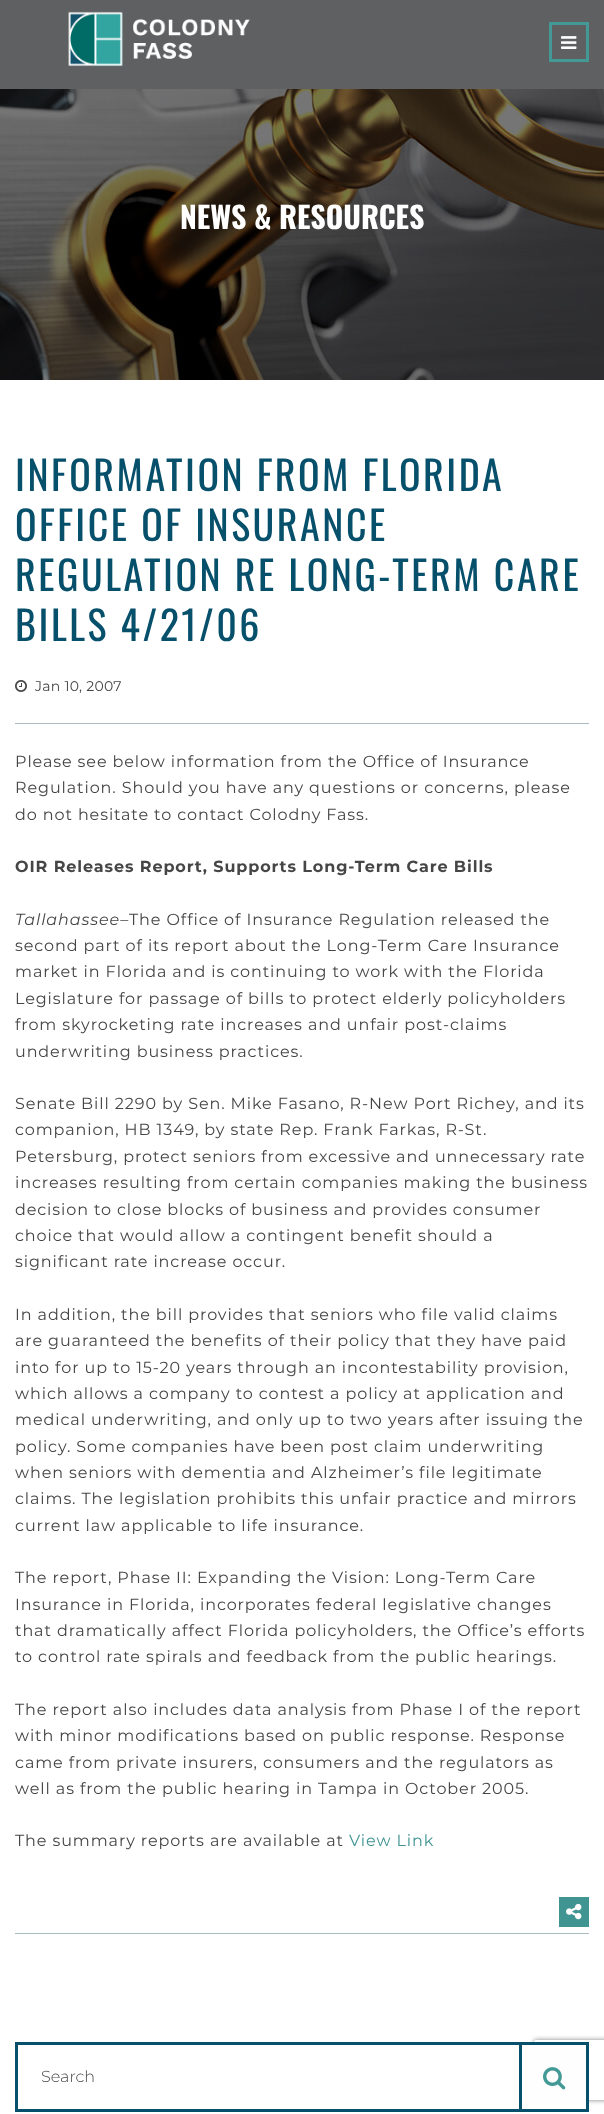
<svg xmlns="http://www.w3.org/2000/svg" width="604" height="2114" viewBox="0 0 604 2114">
  <defs>
    <clipPath id="clip1"><path d="M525 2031H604V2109H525ZM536 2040H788C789 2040 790 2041 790 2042V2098C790 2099 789 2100 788 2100H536C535 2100 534 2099 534 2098V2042C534 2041 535 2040 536 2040Z" clip-rule="evenodd"/></clipPath>
  </defs>
  <rect width="100%" height="100%" fill="#fff"/>
  <path d="M0 0h604v89H0z" fill="#5f6062"/>
  <image x="68" y="11" width="182" height="56" href="img/1.png"/>
  <path d="M550.5 23.5h37v37H550.5z" fill="none" stroke="#439996" stroke-width="3"/>
  <image x="561" y="36" width="16" height="13" href="img/2.png"/>
  <image x="0" y="89" width="604" height="291" href="img/3.png"/>
  <path d="M15 1933h574v1H15z" fill="#aabcc2"/>
  <image x="15" y="680" width="12" height="12" href="img/4.png"/>
  <path d="M15 723h574v1H15z" fill="#aabcc2"/>
  <path d="M559 1897h30v30H559z" fill="#409593"/>
  <image x="566" y="1903" width="16" height="17" href="img/5.png"/>
  <g clip-path="url(#clip1)">
    <rect x="534" y="2040" width="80" height="60" rx="2" fill="#808080" filter="blur(2.5px)"/>
  </g>
  <path d="M16.5 2043.5h571v67H16.5z" fill="none" stroke="#07506b" stroke-width="3"/>
  <path d="M529 2045h57v60H529z" fill="#fefefe"/>
  <path d="M519 2045h3v66H519z" fill="#07506b"/>
  <image x="543" y="2067" width="23" height="23" href="img/6.png"/>
  <text x="180" y="229" font-family="Oswald" font-size="30" font-weight="bold" fill="#fff">NEWS &amp; RESOURCES</text>
  <g font-family="Oswald" font-size="40" letter-spacing="2.5" fill="#07506b">
    <text x="15" y="491">INFORMATION FROM FLORIDA</text>
    <text x="15" y="541">OFFICE OF INSURANCE</text>
    <text x="15" y="591">REGULATION RE LONG-TERM CARE</text>
    <text x="15" y="641">BILLS 4/21/06</text>
  </g>
  <text x="35" y="691" font-family="Montserrat" font-size="14" letter-spacing="0.25" fill="#464646">Jan 10, 2007</text>
  <g font-family="Montserrat" font-size="16" letter-spacing="0.9" fill="#464646">
    <text x="15" y="767">Please see below information from the Office of Insurance</text>
    <text x="15" y="793">Regulation. Should you have any questions or concerns, please</text>
    <text x="15" y="820">do not hesitate to contact Colodny Fass.</text>
  </g>
  <text x="15" y="872" font-family="Montserrat" font-size="16" font-weight="bold" letter-spacing="0.9" fill="#464646">OIR Releases Report, Supports Long-Term Care Bills</text>
  <text x="15" y="925" font-family="Montserrat" font-size="16" font-style="italic" letter-spacing="0.9" fill="#464646">Tallahassee–</text>
  <g font-family="Montserrat" font-size="16" letter-spacing="0.9" fill="#464646">
    <text x="129" y="925">The Office of Insurance Regulation released the</text>
    <text x="15" y="951">second part of its report about the Long-Term Care Insurance</text>
    <text x="15" y="977">market in Florida and is continuing to work with the Florida</text>
    <text x="15" y="1004">Legislature for passage of bills to protect elderly policyholders</text>
    <text x="15" y="1030">from skyrocketing rate increases and unfair post-claims</text>
    <text x="15" y="1057">underwriting business practices.</text>
    <text x="15" y="1109">Senate Bill 2290 by Sen. Mike Fasano, R-New Port Richey, and its</text>
    <text x="15" y="1135">companion, HB 1349, by state Rep. Frank Farkas, R-St.</text>
    <text x="15" y="1162">Petersburg, protect seniors from excessive and unnecessary rate</text>
    <text x="15" y="1188">increases resulting from certain companies making the business</text>
    <text x="15" y="1215">decision to close blocks of business and provides consumer</text>
    <text x="15" y="1241">choice that would allow a contingent benefit should a</text>
    <text x="15" y="1267">significant rate increase occur.</text>
    <text x="15" y="1320">In addition, the bill provides that seniors who file valid claims</text>
    <text x="15" y="1346">are guaranteed the benefits of their policy that they have paid</text>
    <text x="15" y="1373">into for up to 15-20 years through an incontestability provision,</text>
    <text x="15" y="1399">which allows a company to contest a policy at application and</text>
    <text x="15" y="1425">medical underwriting, and only up to two years after issuing the</text>
    <text x="15" y="1452">policy. Some companies have been post claim underwriting</text>
    <text x="15" y="1478">when seniors with dementia and Alzheimer’s file legitimate</text>
    <text x="15" y="1504">claims. The legislation prohibits this unfair practice and mirrors</text>
    <text x="15" y="1531">current law applicable to life insurance.</text>
    <text x="15" y="1583">The report, Phase II: Expanding the Vision: Long-Term Care</text>
    <text x="15" y="1610">Insurance in Florida, incorporates federal legislative changes</text>
    <text x="15" y="1636">that dramatically affect Florida policyholders, the Office’s efforts</text>
    <text x="15" y="1662">to control rate spirals and feedback from the public hearings.</text>
    <text x="15" y="1715">The report also includes data analysis from Phase I of the report</text>
    <text x="15" y="1741">with minor modifications based on public response. Response</text>
    <text x="15" y="1768">came from private insurers, consumers and the regulators as</text>
    <text x="15" y="1794">well as from the public hearing in Tampa in October 2005.</text>
    <text x="15" y="1846">The summary reports are available at</text>
  </g>
  <text x="349" y="1846" font-family="Montserrat" font-size="16" letter-spacing="0.9" fill="#409593">View Link</text>
  <text x="41" y="2082" font-family="Montserrat" font-size="16" font-weight="300" fill="#464646">Search</text>
</svg>
